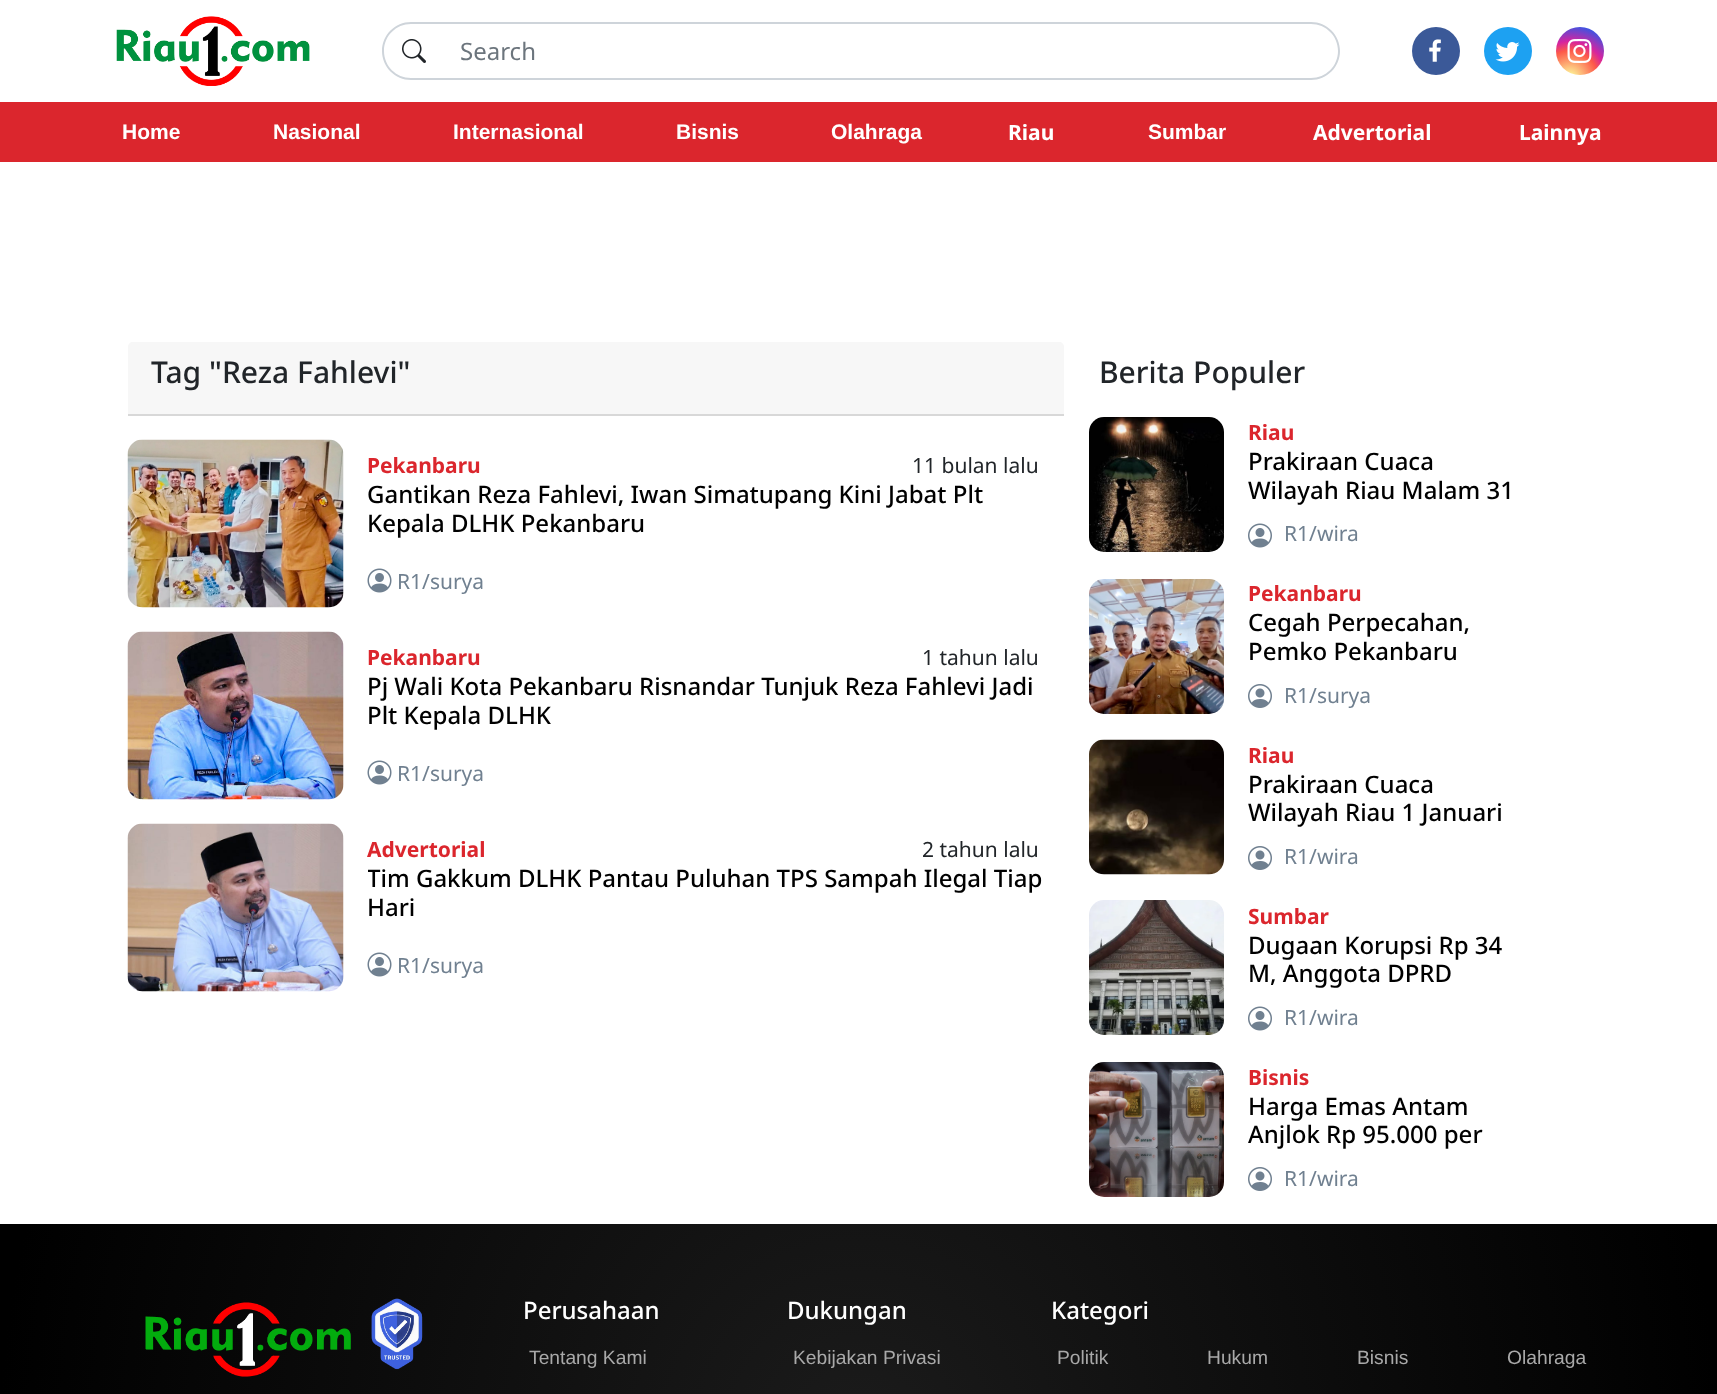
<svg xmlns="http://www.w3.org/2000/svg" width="1717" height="1394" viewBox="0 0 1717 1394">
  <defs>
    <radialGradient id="g1" gradientUnits="userSpaceOnUse" cx="1570" cy="78" r="61"><stop offset="0" stop-color="#fdf497"/><stop offset="0.05" stop-color="#fdf497"/><stop offset="0.45" stop-color="#fd5949"/><stop offset="0.6" stop-color="#d6249f"/><stop offset="0.9" stop-color="#285aeb"/></radialGradient>
    <radialGradient id="g2" gradientUnits="userSpaceOnUse" cx="859" cy="1433" r="859"><stop offset="0" stop-color="#1b1b1b"/><stop offset="1" stop-color="#000"/></radialGradient>
    <clipPath id="clip1"><path d="M368 864h696v71H368z"/></clipPath>
  </defs>
  <rect width="100%" height="100%" fill="#fff"/>
  <image x="116" y="16" width="194" height="70" href="img/1.png"/>
  <path d="M411 22H444V80H411C395 80 382 67 382 51C382 35 395 22 411 22ZM411 24H444V78H411C396 78 384 66 384 51C384 36 396 24 411 24Z" fill="#ced4da" fill-rule="evenodd"/>
  <image x="402" y="39" width="24" height="24" href="img/2.png"/>
  <path d="M442 22H1311C1327 22 1340 35 1340 51C1340 67 1327 80 1311 80H442ZM442 24H1311C1326 24 1338 36 1338 51C1338 66 1326 78 1311 78H442Z" fill="#ced4da" fill-rule="evenodd"/>
  <circle cx="1436" cy="51" r="24" fill="#3b5998"/>
  <image x="1429" y="39" width="12" height="23" href="img/3.png"/>
  <circle cx="1508" cy="51" r="24" fill="#1da1f2"/>
  <image x="1495" y="42" width="25" height="20" href="img/4.png"/>
  <circle cx="1580" cy="51" r="24" fill="url(#g1)"/>
  <image x="1567" y="39" width="25" height="24" href="img/5.png"/>
  <path d="M0 102h1717v60H0z" fill="#db262d"/>
  <path d="M133 342H1059C1062 342 1064 344 1064 347V416H128V347C128 344 130 342 133 342Z" fill="#f7f7f7"/>
  <path d="M128 414h936v2H128z" fill="#d8d8d8"/>
  <image x="127" y="439" width="217" height="169" href="img/6.png"/>
  <image x="367" y="568" width="25" height="25" href="img/7.png"/>
  <image x="127" y="631" width="217" height="169" href="img/8.png"/>
  <image x="367" y="760" width="25" height="25" href="img/7.png"/>
  <image x="127" y="823" width="217" height="169" href="img/9.png"/>
  <image x="367" y="952" width="25" height="25" href="img/7.png"/>
  <image x="1089" y="417" width="135" height="135" href="img/10.png"/>
  <image x="1248" y="523" width="24" height="25" href="img/11.png"/>
  <image x="1089" y="579" width="135" height="135" href="img/12.png"/>
  <image x="1248" y="684" width="24" height="24" href="img/13.png"/>
  <image x="1089" y="739" width="135" height="136" href="img/14.png"/>
  <image x="1248" y="846" width="24" height="24" href="img/13.png"/>
  <image x="1089" y="900" width="135" height="135" href="img/15.png"/>
  <image x="1248" y="1006" width="24" height="25" href="img/11.png"/>
  <image x="1089" y="1062" width="135" height="135" href="img/16.png"/>
  <image x="1248" y="1167" width="24" height="24" href="img/13.png"/>
  <path d="M0 1224h1717v170H0z" fill="url(#g2)"/>
  <image x="145" y="1302" width="206" height="75" href="img/17.png"/>
  <image x="371" y="1298" width="52" height="72" href="img/18.png"/>
  <text x="460" y="60" font-family="Noto Sans" font-size="24" fill="#6c757d">Search</text>
  <g font-family="Liberation Sans" font-size="21" font-weight="bold" fill="#fff">
    <text x="122" y="139">Home</text>
    <text x="273" y="139">Nasional</text>
    <text x="453" y="139">Internasional</text>
    <text x="676" y="139">Bisnis</text>
    <text x="831" y="139">Olahraga</text>
  </g>
  <text x="1008" y="140" font-family="Noto Sans" font-size="21" font-weight="bold" fill="#fff">Riau</text>
  <text x="1148" y="139" font-family="Liberation Sans" font-size="21" font-weight="bold" fill="#fff">Sumbar</text>
  <g font-family="Noto Sans" font-size="21" font-weight="bold" fill="#fff">
    <text x="1313" y="140">Advertorial</text>
    <text x="1519" y="140">Lainnya</text>
  </g>
  <text x="151" y="383" font-family="Noto Sans" font-size="30" font-weight="500" fill="#212529">Tag "Reza Fahlevi"</text>
  <text x="367" y="473" font-family="Noto Sans" font-size="21" font-weight="bold" fill="#db262d">Pekanbaru</text>
  <text x="912" y="473" font-family="Noto Sans" font-size="21" fill="#212529">11 bulan lalu</text>
  <g font-family="Noto Sans" font-size="24" font-weight="500" fill="#000">
    <text x="367" y="503">Gantikan Reza Fahlevi, Iwan Simatupang Kini Jabat Plt</text>
    <text x="367" y="532">Kepala DLHK Pekanbaru</text>
  </g>
  <text x="397" y="589" font-family="Noto Sans" font-size="21" fill="#708090">R1/surya</text>
  <text x="367" y="665" font-family="Noto Sans" font-size="21" font-weight="bold" fill="#db262d">Pekanbaru</text>
  <text x="922" y="665" font-family="Noto Sans" font-size="21" fill="#212529">1 tahun lalu</text>
  <g font-family="Noto Sans" font-size="24" font-weight="500" fill="#000">
    <text x="367" y="695">Pj Wali Kota Pekanbaru Risnandar Tunjuk Reza Fahlevi Jadi</text>
    <text x="367" y="724">Plt Kepala DLHK</text>
  </g>
  <text x="397" y="781" font-family="Noto Sans" font-size="21" fill="#708090">R1/surya</text>
  <text x="367" y="857" font-family="Noto Sans" font-size="21" font-weight="bold" fill="#db262d">Advertorial</text>
  <text x="922" y="857" font-family="Noto Sans" font-size="21" fill="#212529">2 tahun lalu</text>
  <g clip-path="url(#clip1)">
    <text x="367" y="887" font-family="Noto Sans" font-size="24" font-weight="500" fill="#000">Tim Gakkum DLHK Pantau Puluhan TPS Sampah Ilegal Tiap</text>
  </g>
  <text x="367" y="916" font-family="Noto Sans" font-size="24" font-weight="500" fill="#000">Hari</text>
  <text x="397" y="973" font-family="Noto Sans" font-size="21" fill="#708090">R1/surya</text>
  <text x="1099" y="383" font-family="Noto Sans" font-size="30" font-weight="500" fill="#212529">Berita Populer</text>
  <text x="1248" y="440" font-family="Noto Sans" font-size="21" font-weight="bold" fill="#db262d">Riau</text>
  <g font-family="Noto Sans" font-size="24" font-weight="500" fill="#000">
    <text x="1248" y="470">Prakiraan Cuaca</text>
    <text x="1248" y="499">Wilayah Riau Malam 31</text>
  </g>
  <text x="1284" y="541" font-family="Noto Sans" font-size="21" fill="#708090">R1/wira</text>
  <text x="1248" y="601" font-family="Noto Sans" font-size="21" font-weight="bold" fill="#db262d">Pekanbaru</text>
  <g font-family="Noto Sans" font-size="24" font-weight="500" fill="#000">
    <text x="1248" y="631">Cegah Perpecahan,</text>
    <text x="1248" y="660">Pemko Pekanbaru</text>
  </g>
  <text x="1284" y="703" font-family="Noto Sans" font-size="21" fill="#708090">R1/surya</text>
  <text x="1248" y="763" font-family="Noto Sans" font-size="21" font-weight="bold" fill="#db262d">Riau</text>
  <g font-family="Noto Sans" font-size="24" font-weight="500" fill="#000">
    <text x="1248" y="793">Prakiraan Cuaca</text>
    <text x="1248" y="821">Wilayah Riau 1 Januari</text>
  </g>
  <text x="1284" y="864" font-family="Noto Sans" font-size="21" fill="#708090">R1/wira</text>
  <text x="1248" y="924" font-family="Noto Sans" font-size="21" font-weight="bold" fill="#db262d">Sumbar</text>
  <g font-family="Noto Sans" font-size="24" font-weight="500" fill="#000">
    <text x="1248" y="954">Dugaan Korupsi Rp 34</text>
    <text x="1248" y="982">M, Anggota DPRD</text>
  </g>
  <text x="1284" y="1025" font-family="Noto Sans" font-size="21" fill="#708090">R1/wira</text>
  <text x="1248" y="1085" font-family="Noto Sans" font-size="21" font-weight="bold" fill="#db262d">Bisnis</text>
  <g font-family="Noto Sans" font-size="24" font-weight="500" fill="#000">
    <text x="1248" y="1115">Harga Emas Antam</text>
    <text x="1248" y="1143">Anjlok Rp 95.000 per</text>
  </g>
  <text x="1284" y="1186" font-family="Noto Sans" font-size="21" fill="#708090">R1/wira</text>
  <text x="523" y="1319" font-family="Noto Sans" font-size="24" font-weight="500" fill="#fff">Perusahaan</text>
  <text x="529" y="1364" font-family="Liberation Sans" font-size="19.25" fill="#a9a9a9">Tentang Kami</text>
  <text x="787" y="1319" font-family="Noto Sans" font-size="24" font-weight="500" fill="#fff">Dukungan</text>
  <text x="793" y="1364" font-family="Liberation Sans" font-size="19.25" fill="#a9a9a9">Kebijakan Privasi</text>
  <text x="1051" y="1319" font-family="Noto Sans" font-size="24" font-weight="500" fill="#fff">Kategori</text>
  <g font-family="Liberation Sans" font-size="19.25" fill="#a9a9a9">
    <text x="1057" y="1364">Politik</text>
    <text x="1207" y="1364">Hukum</text>
    <text x="1357" y="1364">Bisnis</text>
    <text x="1507" y="1364">Olahraga</text>
  </g>
</svg>
